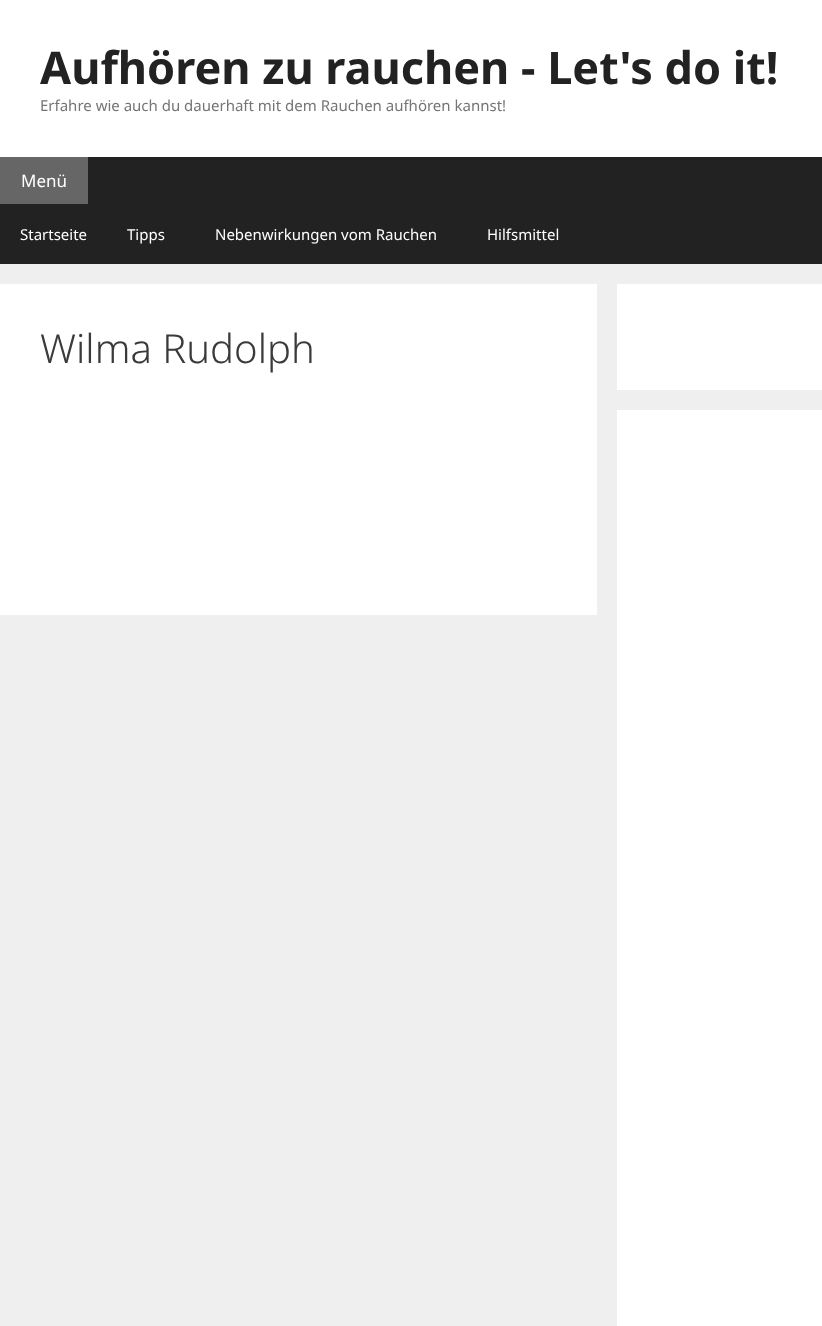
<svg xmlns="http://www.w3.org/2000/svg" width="822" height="1326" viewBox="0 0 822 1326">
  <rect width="100%" height="100%" fill="#efefef"/>
  <path d="M0 0h822v157H0z" fill="#fff"/>
  <path d="M0 157h822v107H0z" fill="#222"/>
  <path d="M0 157h88v47H0z" fill="#666"/>
  <path d="M0 284h597v331H0z" fill="#fff"/>
  <path d="M617 284h205v106H617z" fill="#fff"/>
  <path d="M617 410h205v916H617z" fill="#fff"/>
  <text x="40" y="84" font-family="Noto Sans" font-size="45" font-weight="bold" fill="#222">Aufhören zu rauchen - Let's do it!</text>
  <text x="40" y="111" font-family="Noto Sans" font-size="15" fill="#757575">Erfahre wie auch du dauerhaft mit dem Rauchen aufhören kannst!</text>
  <text x="21" y="187" font-family="Noto Sans" font-size="17" fill="#fff">Menü</text>
  <g font-family="Noto Sans" font-size="15" fill="#fff">
    <text x="20" y="240">Startseite</text>
    <text x="127" y="240">Tipps</text>
    <text x="215" y="240">Nebenwirkungen vom Rauchen</text>
    <text x="487" y="240">Hilfsmittel</text>
  </g>
  <text x="40" y="363" font-family="Noto Sans" font-size="40" font-weight="300" fill="#3a3a3a">Wilma Rudolph</text>
</svg>
